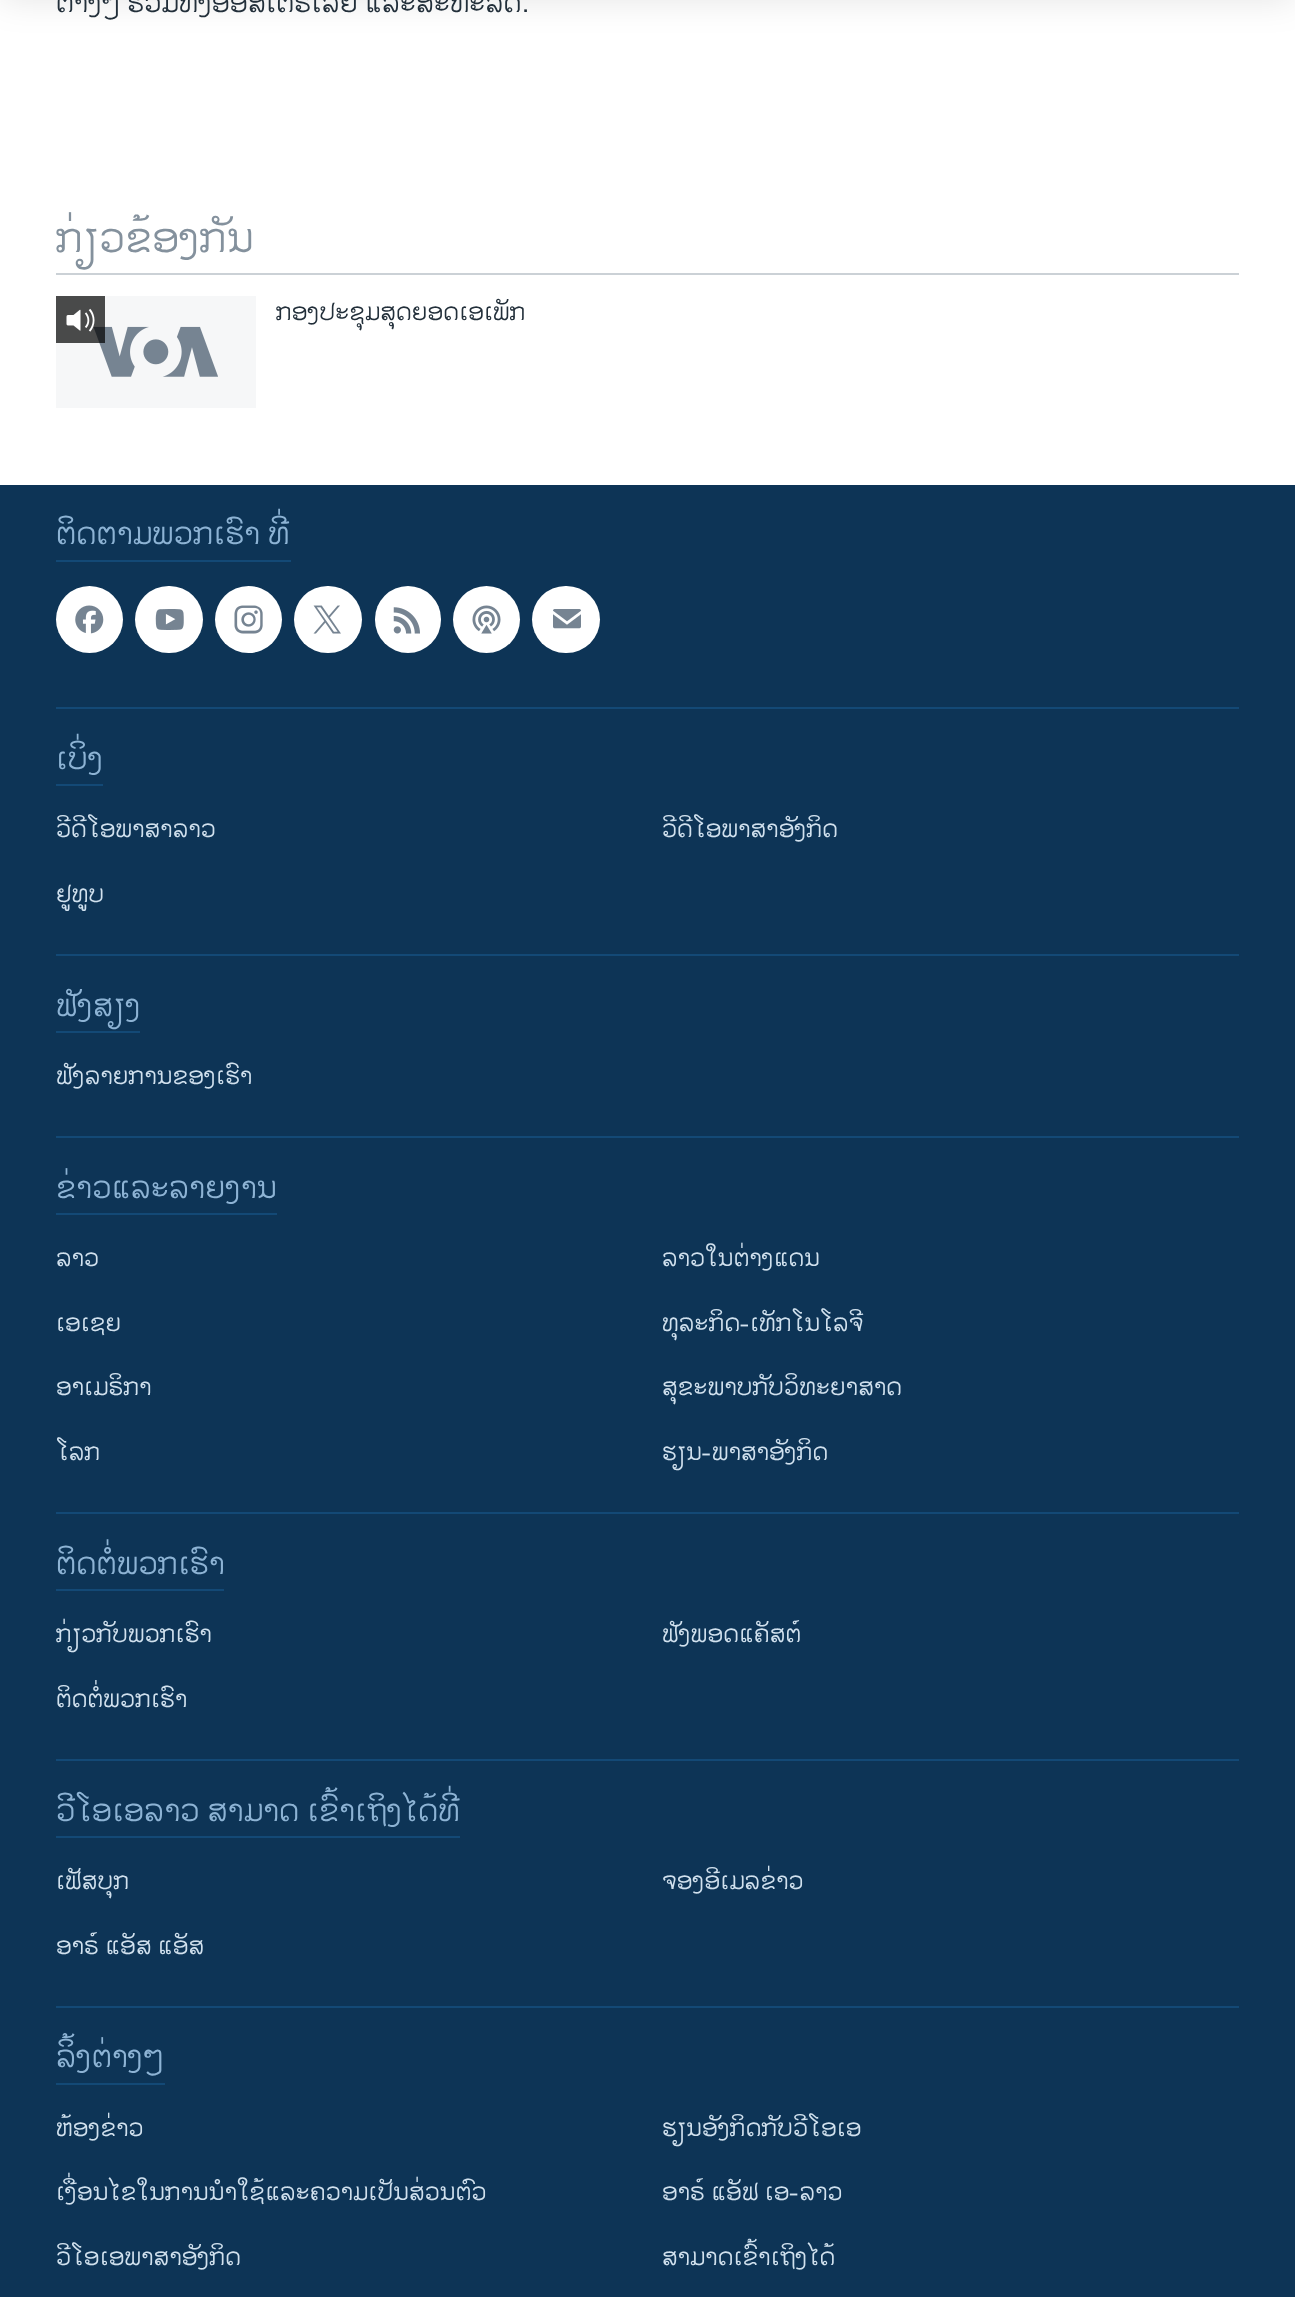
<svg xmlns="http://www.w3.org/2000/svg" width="1295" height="2297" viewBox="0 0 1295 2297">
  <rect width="100%" height="100%" fill="#fff"/>
  <path d="M0 -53h1295v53H0z" fill="#0000001a" filter="blur(17.5px)"/>
  <path d="M56 273h1183v2H56z" fill="#cbd1d6"/>
  <path d="M56 296h200v112H56z" fill="#f6f7f8"/>
  <image x="93" y="326" width="125" height="51" href="img/1.png"/>
  <path d="M56 296h49v47H56z" fill="#000000b3"/>
  <image x="66" y="308" width="29" height="24" href="img/2.png"/>
  <path d="M0 485h1295v1812H0z" fill="#0d3456"/>
  <path d="M56 560h235v2H56z" fill="#134976"/>
  <circle cx="89.5" cy="619.5" r="33.5" fill="#fff"/>
  <image x="75" y="605" width="29" height="29" href="img/3.png"/>
  <rect x="135" y="586" width="68" height="67" rx="33.5" fill="#fff"/>
  <image x="155" y="609" width="29" height="21" href="img/4.png"/>
  <circle cx="248.5" cy="619.5" r="33.5" fill="#fff"/>
  <image x="234" y="605" width="29" height="29" href="img/5.png"/>
  <rect x="294" y="586" width="68" height="67" rx="33.5" fill="#fff"/>
  <image x="313" y="605" width="28" height="29" href="img/6.png"/>
  <rect x="375" y="586" width="66" height="67" rx="33" fill="#fff"/>
  <image x="393" y="607" width="27" height="27" href="img/7.png"/>
  <circle cx="486.5" cy="619.5" r="33.5" fill="#fff"/>
  <image x="472" y="605" width="29" height="29" href="img/8.png"/>
  <rect x="532" y="586" width="68" height="67" rx="33.5" fill="#fff"/>
  <image x="553" y="609" width="28" height="20" href="img/9.png"/>
  <path d="M56 707h1183v2H56z" fill="#134976"/>
  <path d="M56 784h47v2H56z" fill="#134976"/>
  <path d="M56 954h1183v2H56z" fill="#134976"/>
  <path d="M56 1031h84v2H56z" fill="#134976"/>
  <path d="M56 1136h1183v2H56z" fill="#134976"/>
  <path d="M56 1213h221v2H56z" fill="#134976"/>
  <path d="M56 1512h1183v2H56z" fill="#134976"/>
  <path d="M56 1589h168v2H56z" fill="#134976"/>
  <path d="M56 1759h1183v2H56z" fill="#134976"/>
  <path d="M56 1836h404v2H56z" fill="#134976"/>
  <path d="M56 2006h1183v2H56z" fill="#134976"/>
  <path d="M56 2083h109v2H56z" fill="#134976"/>
  <text x="56" y="12" font-family="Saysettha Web" font-size="28" fill="#222f3a">ຕ່າງໆ ຮວມທັງອອສເຕຣເລຍ ແລະສະຫະລັດ.</text>
  <text x="56" y="252" font-family="Saysettha Web" font-size="42" fill="#84919d">ກ່ຽວຂ້ອງກັນ</text>
  <text x="276" y="320" font-family="Saysettha Web" font-size="24.5" fill="#222f3a">ກອງປະຊຸມສຸດຍອດເອເພັກ</text>
  <g font-family="Saysettha Web" font-size="31.5" fill="#8db3d4">
    <text x="56" y="544">ຕິດຕາມພວກເຮົາ ທີ່</text>
    <text x="56" y="769">ເບິ່ງ</text>
  </g>
  <g font-family="Saysettha Web" font-size="24.5" fill="#d1e1ee">
    <text x="56" y="837">ວີດີໂອພາສາລາວ</text>
    <text x="662" y="837">ວີດີໂອພາສາອັງກິດ</text>
    <text x="56" y="902">ຢູທູບ</text>
  </g>
  <text x="56" y="1016" font-family="Saysettha Web" font-size="31.5" fill="#8db3d4">ຟັງສຽງ</text>
  <text x="56" y="1084" font-family="Saysettha Web" font-size="24.5" fill="#d1e1ee">ຟັງລາຍການຂອງເຮົາ</text>
  <text x="56" y="1198" font-family="Saysettha Web" font-size="31.5" fill="#8db3d4">ຂ່າວແລະລາຍງານ</text>
  <g font-family="Saysettha Web" font-size="24.5" fill="#d1e1ee">
    <text x="56" y="1266">ລາວ</text>
    <text x="662" y="1266">ລາວໃນຕ່າງແດນ</text>
    <text x="56" y="1331">ເອເຊຍ</text>
    <text x="662" y="1331">ທຸລະກິດ-ເທັກໂນໂລຈີ</text>
    <text x="56" y="1395">ອາເມຣິກາ</text>
    <text x="662" y="1395">ສຸຂະພາບກັບວິທະຍາສາດ</text>
    <text x="56" y="1460">ໂລກ</text>
    <text x="662" y="1460">ຮຽນ-ພາສາອັງກິດ</text>
  </g>
  <text x="56" y="1574" font-family="Saysettha Web" font-size="31.5" fill="#8db3d4">ຕິດຕໍ່ພວກເຮົາ</text>
  <g font-family="Saysettha Web" font-size="24.5" fill="#d1e1ee">
    <text x="56" y="1642">ກ່ຽວກັບພວກເຮົາ</text>
    <text x="662" y="1642">ຟັງພອດແຄັສຕ໌</text>
    <text x="56" y="1707">ຕິດຕໍ່ພວກເຮົາ</text>
  </g>
  <text x="56" y="1821" font-family="Saysettha Web" font-size="31.5" fill="#8db3d4">ວີໂອເອລາວ ສາມາດ ເຂົ້າເຖິງໄດ້ທີ່</text>
  <g font-family="Saysettha Web" font-size="24.5" fill="#d1e1ee">
    <text x="56" y="1889">ເຟັສບຸກ</text>
    <text x="662" y="1889">ຈອງອີເມລຂ່າວ</text>
    <text x="56" y="1954">ອາຣ໌ ແອັສ ແອັສ</text>
  </g>
  <text x="56" y="2067" font-family="Saysettha Web" font-size="31.5" fill="#8db3d4">ລິ້ງຕ່າງໆ</text>
  <g font-family="Saysettha Web" font-size="24.5" fill="#d1e1ee">
    <text x="56" y="2136">ຫ້ອງຂ່າວ</text>
    <text x="662" y="2136">ຮຽນອັງກິດກັບວີໂອເອ</text>
    <text x="56" y="2200">ເງື່ອນໄຂໃນການນຳໃຊ້ແລະຄວາມເປັນສ່ວນຕົວ</text>
    <text x="662" y="2200">ອາຣ໌ ແອັຟ ເອ-ລາວ</text>
    <text x="56" y="2265">ວີໂອເອພາສາອັງກິດ</text>
    <text x="662" y="2265">ສາມາດເຂົ້າເຖິງໄດ້</text>
  </g>
</svg>
